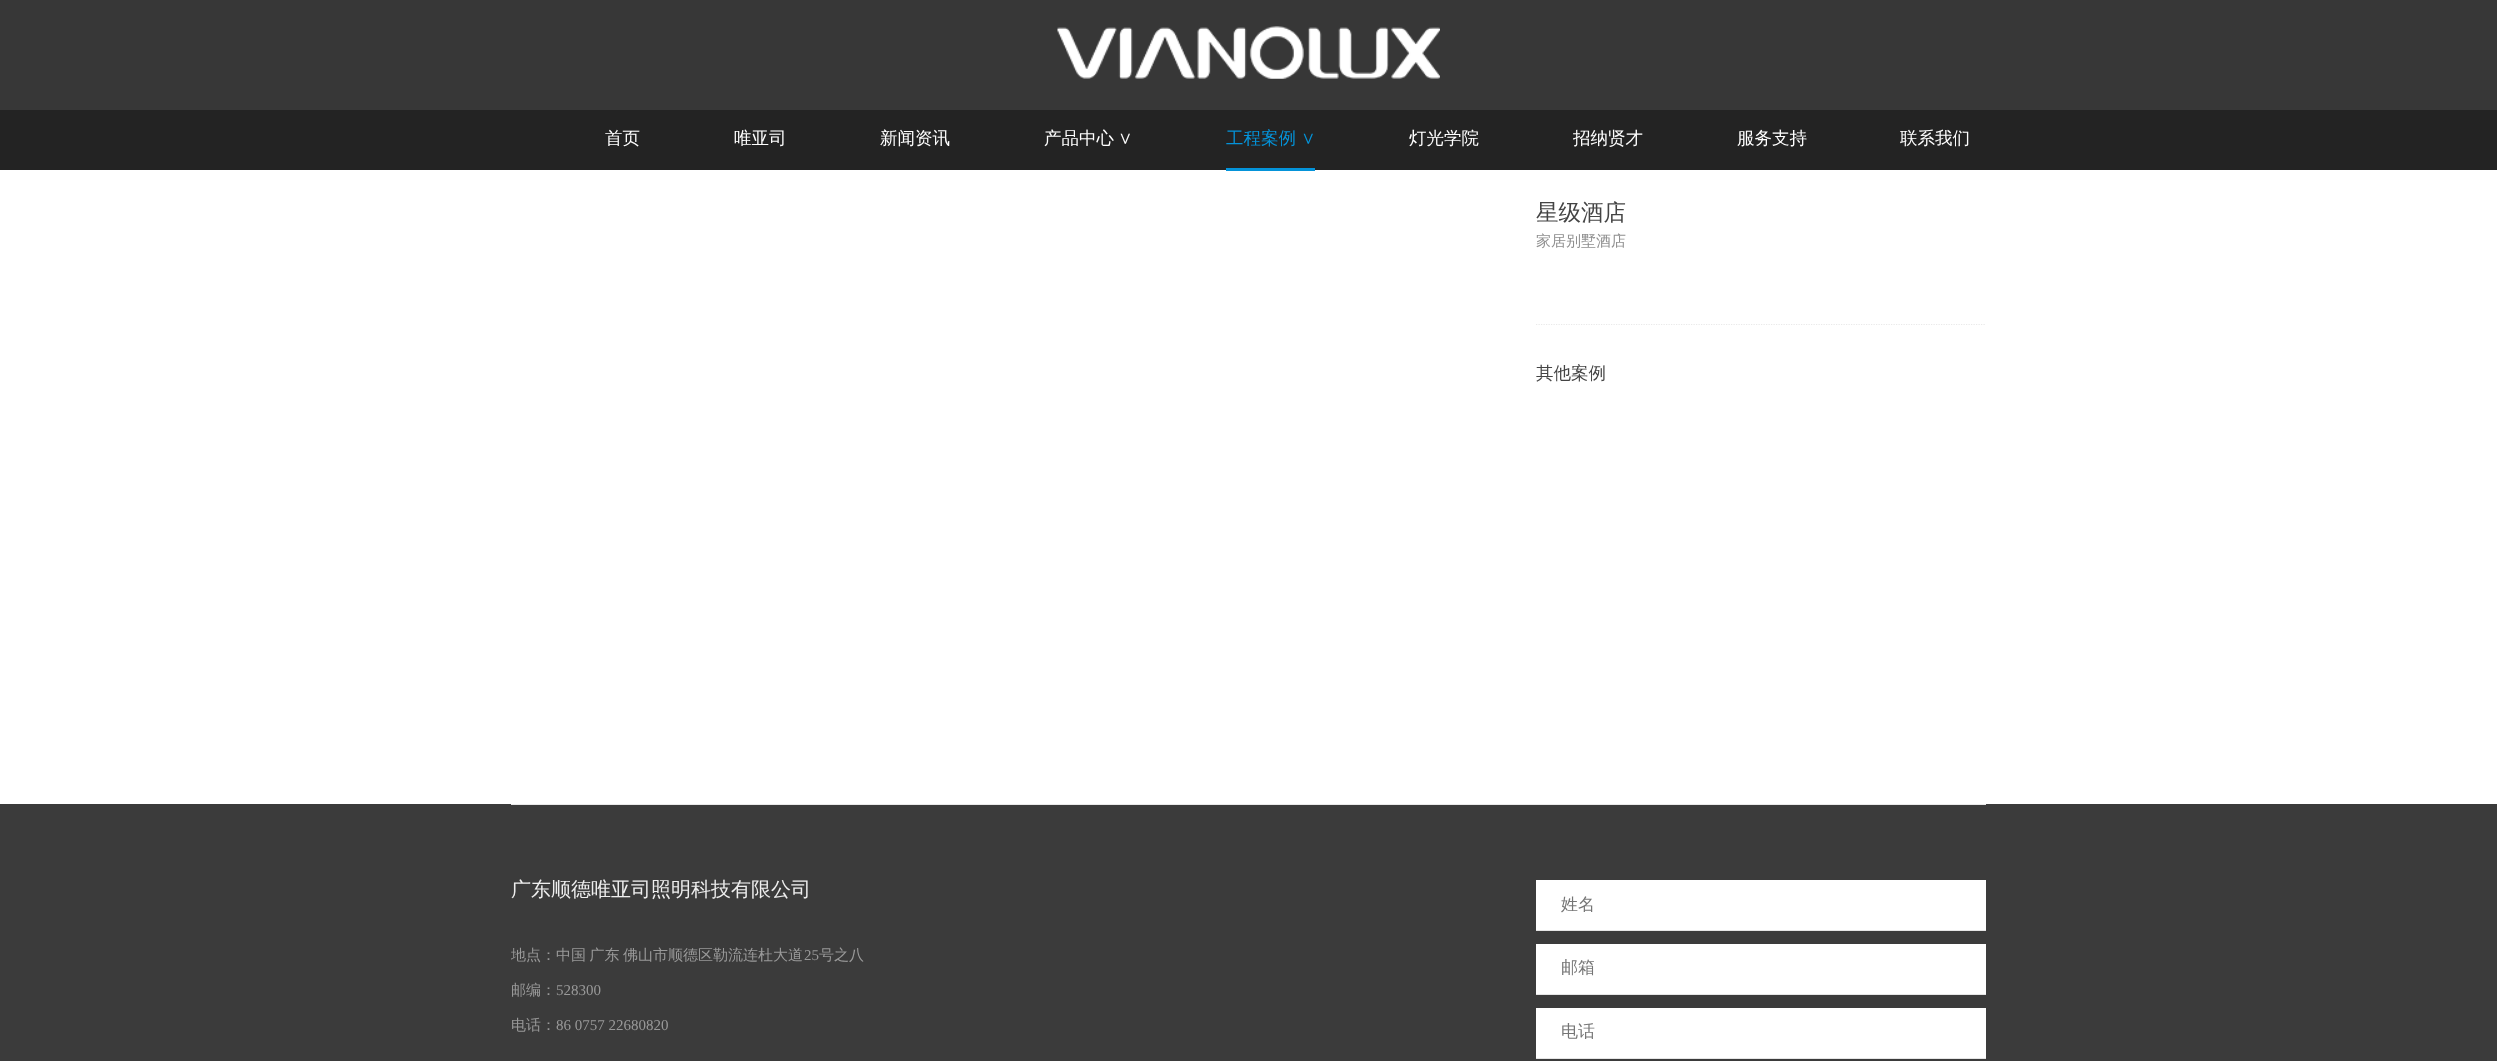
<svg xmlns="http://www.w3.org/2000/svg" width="2497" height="1061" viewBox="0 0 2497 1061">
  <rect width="100%" height="100%" fill="#fff"/>
  <path d="M0 0h2497v110H0z" fill="#373737"/>
  <image x="1057" y="26" width="383" height="53" href="img/1.png"/>
  <path d="M0 110h2497v60H0z" fill="#232323"/>
  <path d="M1226 168h89v3H1226z" fill="#0493d9"/>
  <path d="M1536 324.5H1986" fill="none" stroke="#e9e9e9" stroke-width="1.2" stroke-dasharray="1.25 1.25"/>
  <path d="M0 804h2497v257H0z" fill="#3b3b3b"/>
  <path d="M511 804h1475v1H511z" fill="#e9e9e9"/>
  <path d="M1536 930h450v1H1536z" fill="#e5e5e5"/>
  <path d="M1536 880h450v50H1536z" fill="#fff"/>
  <path d="M1536 994h450v1H1536z" fill="#e5e5e5"/>
  <path d="M1536 944h450v50H1536z" fill="#fff"/>
  <path d="M1536 1058h450v1H1536z" fill="#e5e5e5"/>
  <path d="M1536 1008h450v50H1536z" fill="#fff"/>
  <g font-family="WenQuanYi Zen Hei" font-size="17.5" font-weight="500" fill="#fff">
    <text x="605" y="144">首页</text>
    <text x="734" y="144">唯亚司</text>
    <text x="880" y="144">新闻资讯</text>
    <text x="1044" y="144">产品中心</text>
    <text x="1118" y="144">∨</text>
  </g>
  <g font-family="WenQuanYi Zen Hei" font-size="17.5" font-weight="500" fill="#0493d9">
    <text x="1226" y="144">工程案例</text>
    <text x="1301" y="144">∨</text>
  </g>
  <g font-family="WenQuanYi Zen Hei" font-size="17.5" font-weight="500" fill="#fff">
    <text x="1409" y="144">灯光学院</text>
    <text x="1573" y="144">招纳贤才</text>
    <text x="1737" y="144">服务支持</text>
    <text x="1900" y="144">联系我们</text>
  </g>
  <text x="1536" y="220" font-family="WenQuanYi Zen Hei" font-size="22.5" font-weight="500" fill="#444">星级酒店</text>
  <text x="1536" y="246" font-family="WenQuanYi Zen Hei" font-size="15" font-weight="500" fill="#8f8f8f">家居别墅酒店</text>
  <text x="1536" y="379" font-family="WenQuanYi Zen Hei" font-size="17.5" font-weight="500" fill="#444">其他案例</text>
  <text x="511" y="896" font-family="WenQuanYi Zen Hei" font-size="20" font-weight="500" fill="#eee">广东顺德唯亚司照明科技有限公司</text>
  <text x="511" y="960" word-spacing="-1" font-family="WenQuanYi Zen Hei" font-size="15" font-weight="500" fill="#999">地点：中国 广东 佛山市顺德区勒流连杜大道</text>
  <text x="804" y="960" font-family="Liberation Serif" font-size="15" fill="#999">25</text>
  <g font-family="WenQuanYi Zen Hei" font-size="15" font-weight="500" fill="#999">
    <text x="819" y="960">号之八</text>
    <text x="511" y="995">邮编：</text>
  </g>
  <text x="556" y="995" font-family="Liberation Serif" font-size="15" fill="#999">528300</text>
  <text x="511" y="1030" font-family="WenQuanYi Zen Hei" font-size="15" font-weight="500" fill="#999">电话：</text>
  <text x="556" y="1030" font-family="Liberation Serif" font-size="15" fill="#999">86 0757 22680820</text>
  <g font-family="WenQuanYi Zen Hei" font-size="17" font-weight="500" fill="#757575">
    <text x="1561" y="910">姓名</text>
    <text x="1561" y="973">邮箱</text>
    <text x="1561" y="1037">电话</text>
  </g>
</svg>
